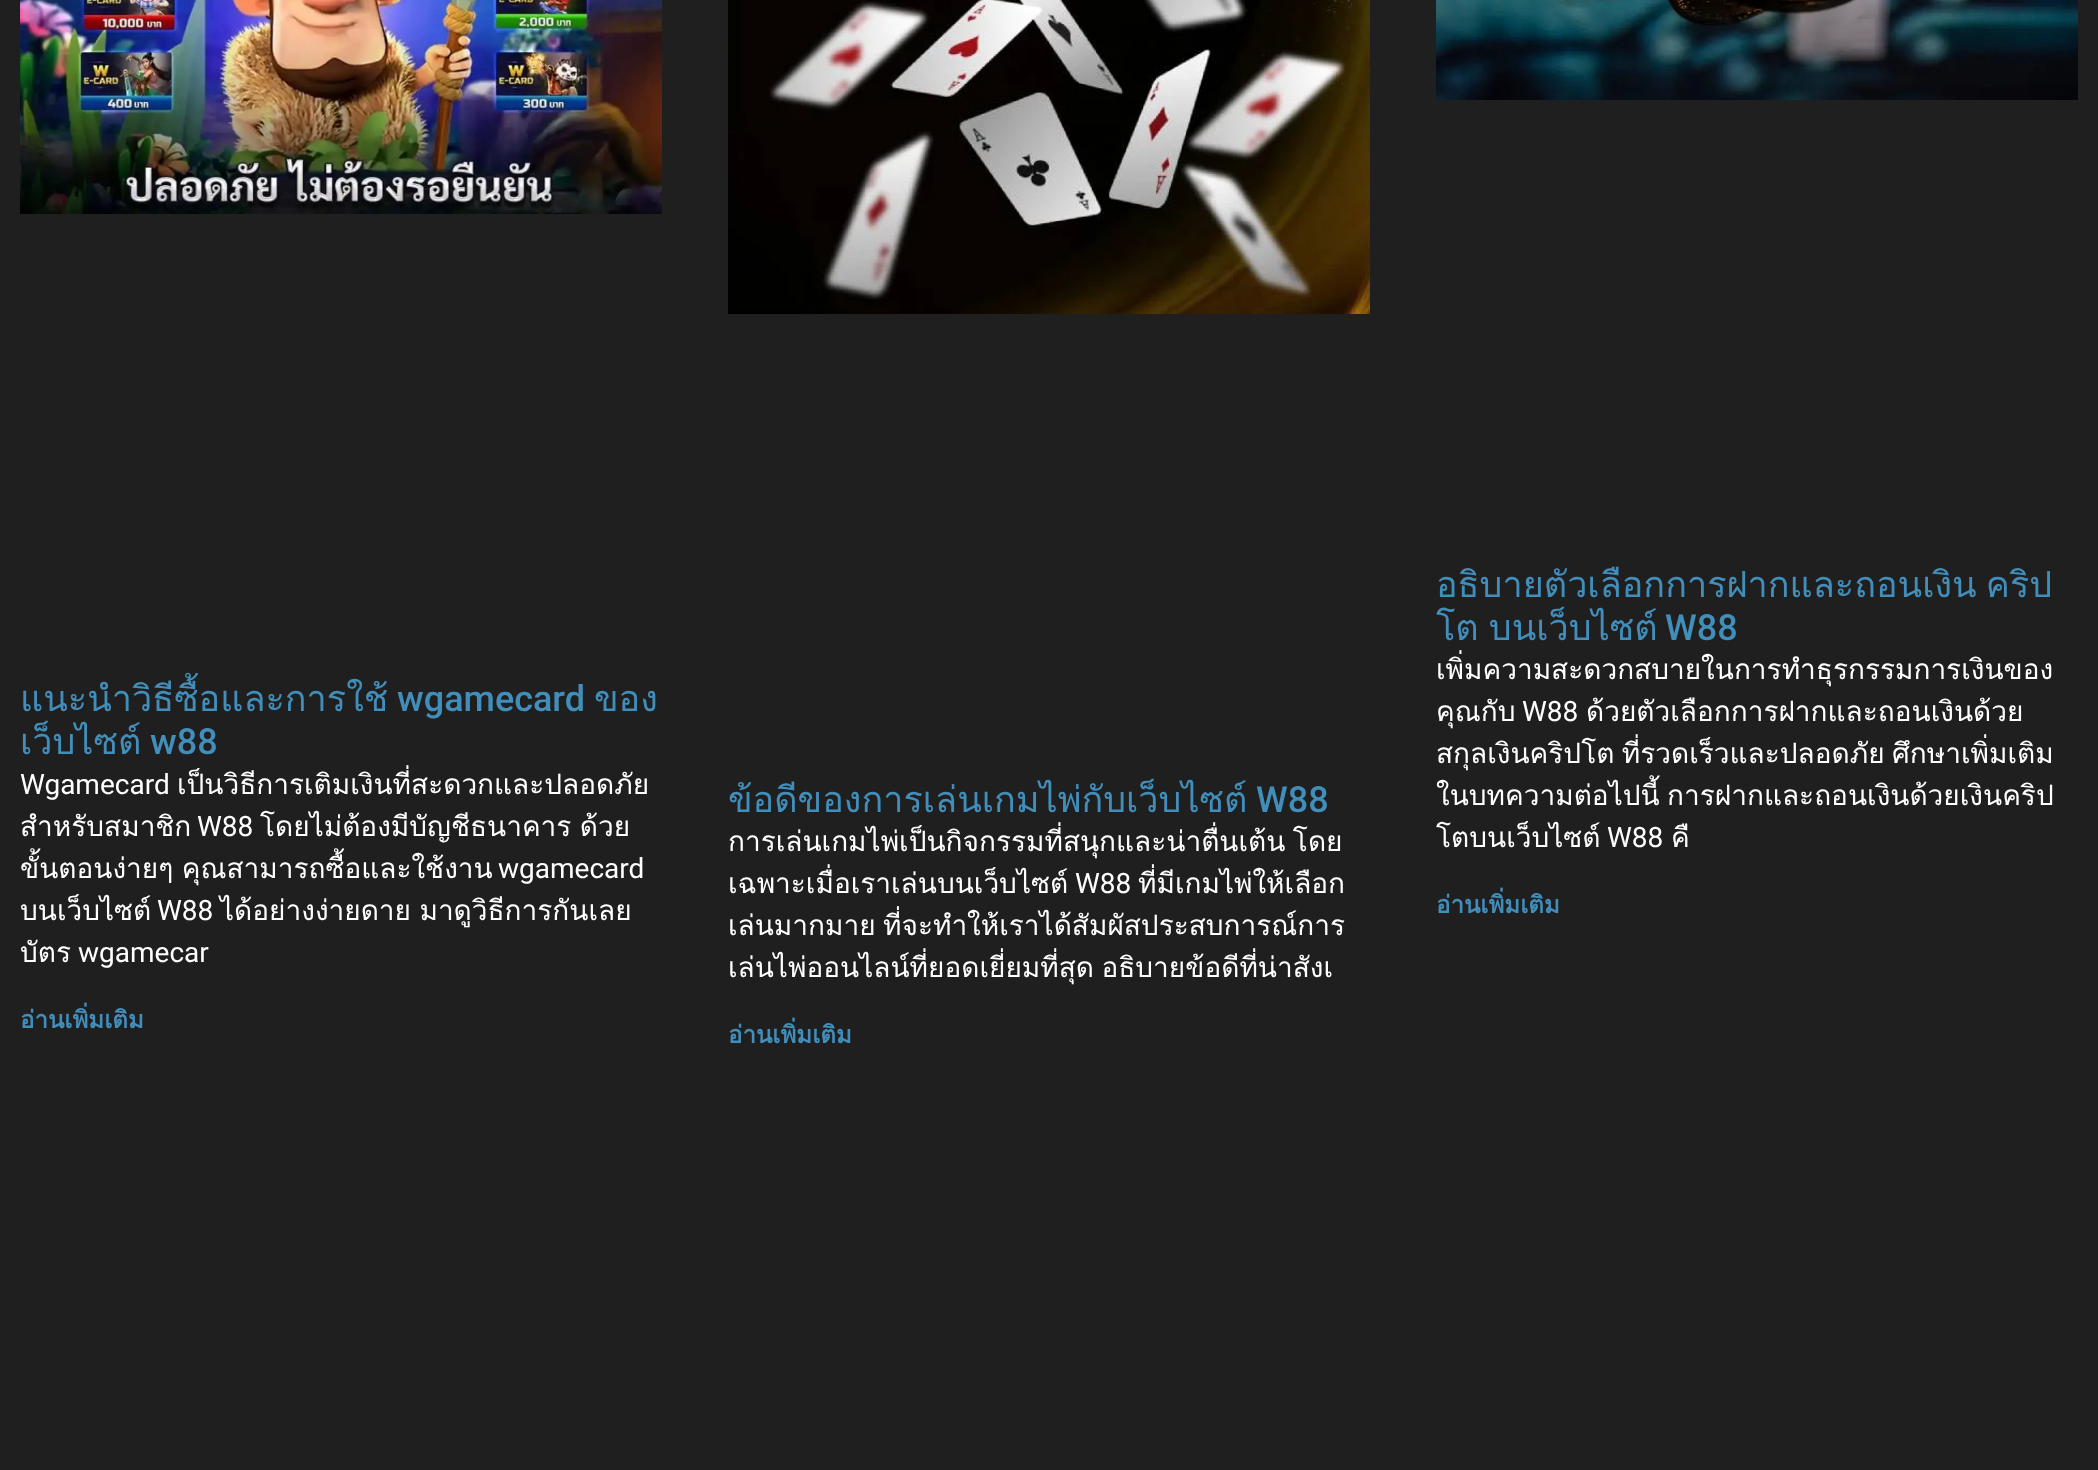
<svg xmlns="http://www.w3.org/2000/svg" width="2098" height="1470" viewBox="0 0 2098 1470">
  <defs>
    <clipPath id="clip1"><path d="M20 0h642v1058H20z"/></clipPath>
    <clipPath id="clip2"><path d="M728 0h642v1058H728z"/></clipPath>
    <clipPath id="clip3"><path d="M1436 0h642v1058H1436z"/></clipPath>
  </defs>
  <rect width="100%" height="100%" fill="#1f1f1f"/>
  <image x="20" y="0" width="642" height="214" href="img/1.png"/>
  <image x="728" y="0" width="642" height="314" href="img/2.png"/>
  <image x="1436" y="0" width="642" height="100" href="img/3.png"/>
  <text x="20" y="711" font-family="Loma" font-size="36" fill="#428ebb">แนะนำวิธีซื้อและการใช้</text>
  <text x="397" y="711" font-family="Roboto" font-size="36" font-weight="500" fill="#428ebb">wgamecard</text>
  <text x="594" y="711" font-family="Loma" font-size="36" fill="#428ebb">ของ</text>
  <g clip-path="url(#clip1)">
    <text x="20" y="754" font-family="Loma" font-size="36" fill="#428ebb">เว็บไซต์</text>
  </g>
  <text x="150" y="754" font-family="Roboto" font-size="36" font-weight="500" fill="#428ebb">w88</text>
  <text x="20" y="794" font-family="Roboto" font-size="28" fill="#fff">Wgamecard</text>
  <text x="177" y="794" font-family="Loma" font-size="28" fill="#fff">เป็นวิธีการเติมเงินที่สะดวกและปลอดภัย</text>
  <g clip-path="url(#clip1)">
    <text x="20" y="836" font-family="Loma" font-size="28" fill="#fff">สำหรับสมาชิก</text>
  </g>
  <text x="197" y="836" font-family="Roboto" font-size="28" fill="#fff">W88</text>
  <text x="260" y="836" word-spacing="-1" font-family="Loma" font-size="28" fill="#fff">โดยไม่ต้องมีบัญชีธนาคาร ด้วย</text>
  <g clip-path="url(#clip1)">
    <text x="20" y="878" word-spacing="-1" font-family="Loma" font-size="28" fill="#fff">ขั้นตอนง่ายๆ คุณสามารถซื้อและใช้งาน</text>
  </g>
  <text x="498" y="878" font-family="Roboto" font-size="28" fill="#fff">wgamecard</text>
  <text x="20" y="920" font-family="Loma" font-size="28" fill="#fff">บนเว็บไซต์</text>
  <text x="157" y="920" font-family="Roboto" font-size="28" fill="#fff">W88</text>
  <text x="220" y="920" word-spacing="-1" font-family="Loma" font-size="28" fill="#fff">ได้อย่างง่ายดาย มาดูวิธีการกันเลย</text>
  <g clip-path="url(#clip1)">
    <text x="20" y="962" font-family="Loma" font-size="28" fill="#fff">บัตร</text>
  </g>
  <text x="78" y="962" font-family="Roboto" font-size="28" fill="#fff">wgamecar</text>
  <g clip-path="url(#clip1)">
    <text x="20" y="1028" font-family="Loma" font-size="24" font-weight="bold" fill="#428ebb">อ่านเพิ่มเติม</text>
  </g>
  <g clip-path="url(#clip2)">
    <text x="728" y="812" font-family="Loma" font-size="36" fill="#428ebb">ข้อดีของการเล่นเกมไพ่กับเว็บไซต์</text>
  </g>
  <text x="1256" y="812" font-family="Roboto" font-size="36" font-weight="500" fill="#428ebb">W88</text>
  <g font-family="Loma" font-size="28" fill="#fff">
    <text x="728" y="851" word-spacing="-2">การเล่นเกมไพ่เป็นกิจกรรมที่สนุกและน่าตื่นเต้น โดย</text>
    <text x="728" y="893">เฉพาะเมื่อเราเล่นบนเว็บไซต์</text>
  </g>
  <text x="1075" y="893" font-family="Roboto" font-size="28" fill="#fff">W88</text>
  <g font-family="Loma" font-size="28" fill="#fff">
    <text x="1138" y="893">ที่มีเกมไพ่ให้เลือก</text>
    <text x="728" y="935" word-spacing="-2">เล่นมากมาย ที่จะทำให้เราได้สัมผัสประสบการณ์การ</text>
    <text x="728" y="977" word-spacing="-2">เล่นไพ่ออนไลน์ที่ยอดเยี่ยมที่สุด อธิบายข้อดีที่น่าสังเ</text>
  </g>
  <g clip-path="url(#clip2)">
    <text x="728" y="1043" font-family="Loma" font-size="24" font-weight="bold" fill="#428ebb">อ่านเพิ่มเติม</text>
  </g>
  <g font-family="Loma" font-size="36" fill="#428ebb">
    <text x="1436" y="597" word-spacing="-3">อธิบายตัวเลือกการฝากและถอนเงิน คริป</text>
    <text x="1436" y="640" word-spacing="-2">โต บนเว็บไซต์</text>
  </g>
  <text x="1665" y="640" font-family="Roboto" font-size="36" font-weight="500" fill="#428ebb">W88</text>
  <g clip-path="url(#clip3)">
    <g font-family="Loma" font-size="28" fill="#fff">
      <text x="1436" y="679">เพิ่มความสะดวกสบายในการทำธุรกรรมการเงินของ</text>
      <text x="1436" y="721">คุณกับ</text>
    </g>
  </g>
  <text x="1522" y="721" font-family="Roboto" font-size="28" fill="#fff">W88</text>
  <g font-family="Loma" font-size="28" fill="#fff">
    <text x="1586" y="721">ด้วยตัวเลือกการฝากและถอนเงินด้วย</text>
    <text x="1436" y="763" word-spacing="-2">สกุลเงินคริปโต ที่รวดเร็วและปลอดภัย ศึกษาเพิ่มเติม</text>
    <text x="1436" y="805" word-spacing="-2">ในบทความต่อไปนี้ การฝากและถอนเงินด้วยเงินคริป</text>
    <text x="1436" y="847">โตบนเว็บไซต์</text>
  </g>
  <text x="1607" y="847" font-family="Roboto" font-size="28" fill="#fff">W88</text>
  <text x="1671" y="847" font-family="Loma" font-size="28" fill="#fff">คื</text>
  <g clip-path="url(#clip3)">
    <text x="1436" y="913" font-family="Loma" font-size="24" font-weight="bold" fill="#428ebb">อ่านเพิ่มเติม</text>
  </g>
</svg>
